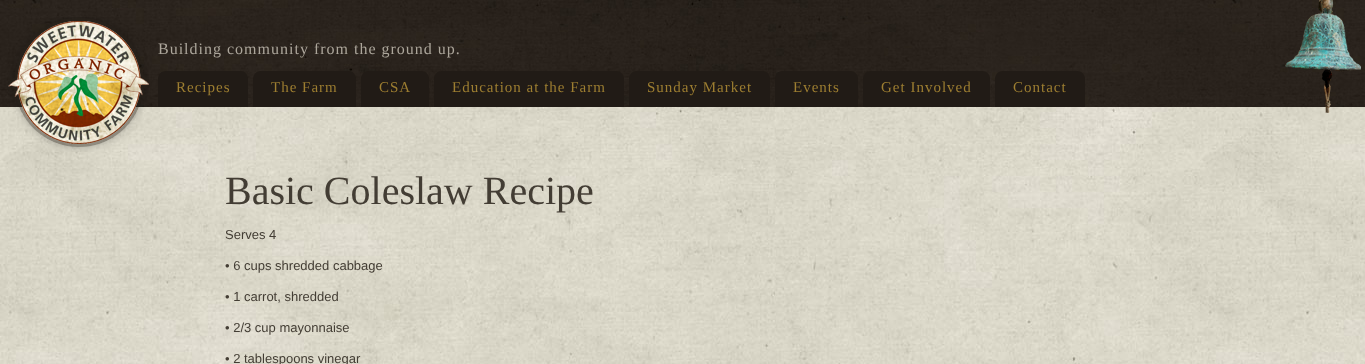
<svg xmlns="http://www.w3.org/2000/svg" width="1365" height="364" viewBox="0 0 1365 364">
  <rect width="100%" height="100%" fill="#fff"/>
  <image x="0" y="107" width="1365" height="257" href="img/1.png"/>
  <image x="0" y="0" width="1365" height="107" href="img/2.png"/>
  <image x="8" y="17" width="141" height="135" href="img/3.png"/>
  <image x="1285" y="0" width="76" height="113" href="img/4.png"/>
  <path d="M166 71H240C244.5 71 248 74.5 248 79V107H158V79C158 74.5 161.5 71 166 71Z" fill="#211b16"/>
  <path d="M261 71H348C352.5 71 356 74.5 356 79V107H253V79C253 74.5 256.5 71 261 71Z" fill="#211b16"/>
  <path d="M369 71H421C425.5 71 429 74.5 429 79V107H361V79C361 74.5 364.5 71 369 71Z" fill="#211b16"/>
  <path d="M442 71H616C620.5 71 624 74.5 624 79V107H434V79C434 74.5 437.5 71 442 71Z" fill="#211b16"/>
  <path d="M637 71H762C766.5 71 770 74.5 770 79V107H629V79C629 74.5 632.5 71 637 71Z" fill="#211b16"/>
  <path d="M783 71H850C854.5 71 858 74.5 858 79V107H775V79C775 74.5 778.5 71 783 71Z" fill="#211b16"/>
  <path d="M871 71H982C986.5 71 990 74.5 990 79V107H863V79C863 74.5 866.5 71 871 71Z" fill="#211b16"/>
  <path d="M1003 71H1077C1081.5 71 1085 74.5 1085 79V107H995V79C995 74.5 998.5 71 1003 71Z" fill="#211b16"/>
  <text x="158" y="54" font-family="Liberation Serif" font-size="16" letter-spacing="1" fill="#aca69b">Building community from the ground up.</text>
  <g font-family="Liberation Serif" font-size="15" letter-spacing="1" fill="#9d7e31">
    <text x="176" y="92">Recipes</text>
    <text x="271" y="92">The Farm</text>
    <text x="379" y="92">CSA</text>
    <text x="452" y="92">Education at the Farm</text>
    <text x="647" y="92">Sunday Market</text>
    <text x="793" y="92">Events</text>
    <text x="881" y="92">Get Involved</text>
    <text x="1013" y="92">Contact</text>
  </g>
  <text x="225" y="204" font-family="Liberation Serif" font-size="40" fill="#433d34">Basic Coleslaw Recipe</text>
  <g font-family="Liberation Sans" font-size="13" fill="#433d34">
    <text x="225" y="239">Serves 4</text>
    <text x="225" y="270">• 6 cups shredded cabbage</text>
    <text x="225" y="301">• 1 carrot, shredded</text>
    <text x="225" y="332">• 2/3 cup mayonnaise</text>
    <text x="225" y="363">• 2 tablespoons vinegar</text>
  </g>
</svg>
